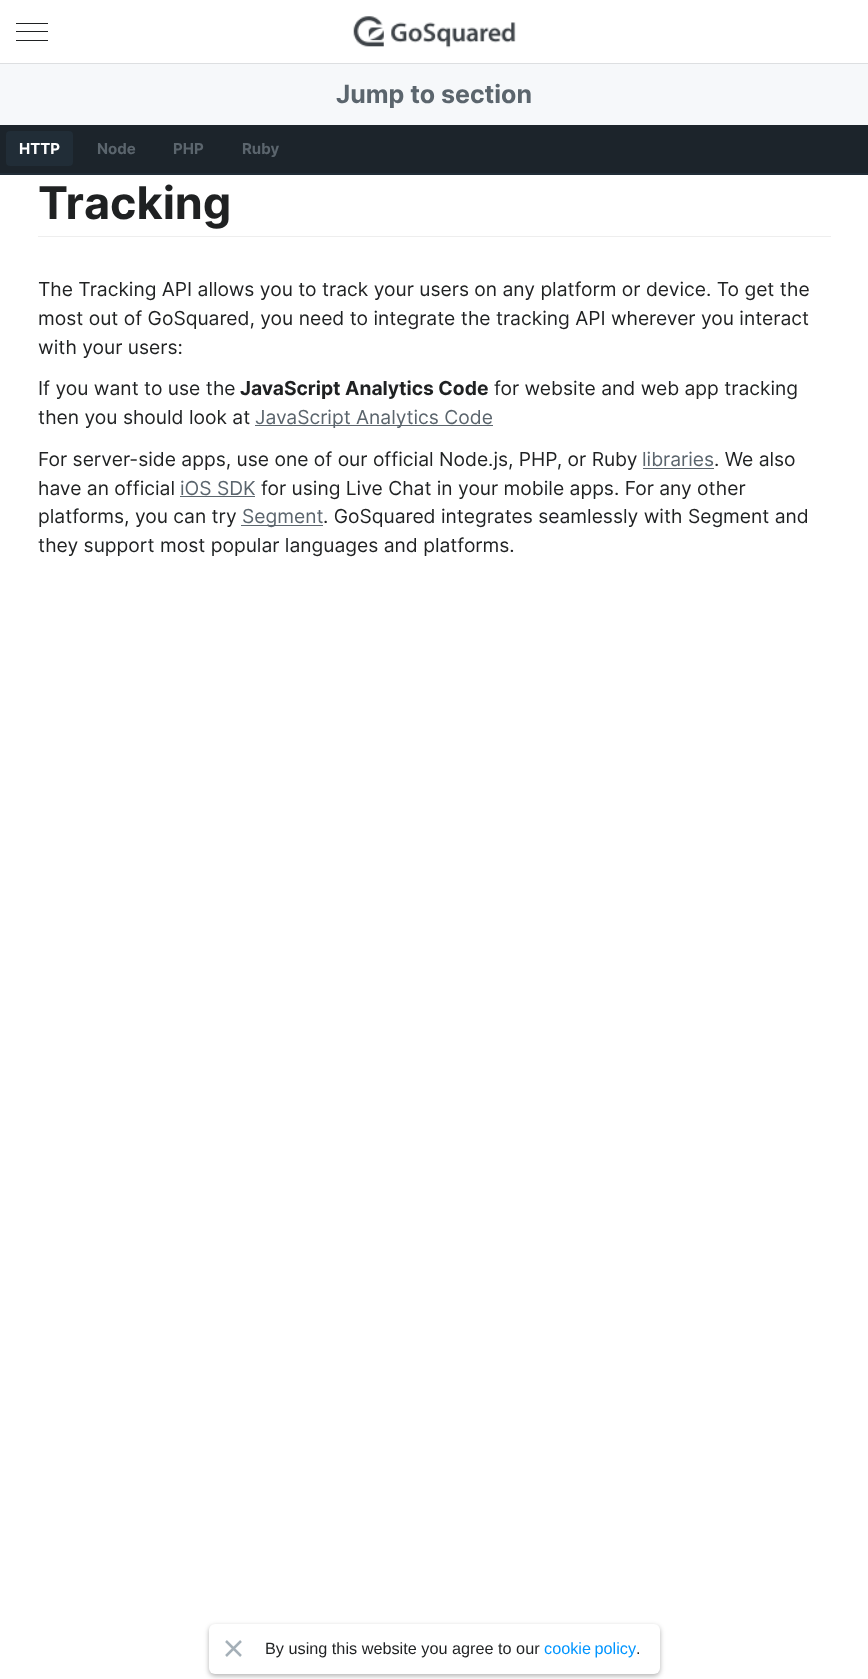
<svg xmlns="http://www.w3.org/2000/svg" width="868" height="1679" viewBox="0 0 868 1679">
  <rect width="100%" height="100%" fill="#fff"/>
  <path d="M0 63h868v1H0z" fill="#dddfe1"/>
  <path d="M16 23h32v1H16z" fill="#1f2122"/>
  <path d="M16 40h32v1H16z" fill="#1f2122"/>
  <path d="M16 31h32v1H16z" fill="#1f2122"/>
  <image x="353" y="16" width="163" height="32" href="img/1.png"/>
  <path d="M0 64h868v61H0z" fill="#f6f8fa"/>
  <path d="M-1 125V175H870V125H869V172H0V125Z" fill="#212d37"/>
  <path d="M0 125h868v48H0z" fill="#1c242b"/>
  <rect x="6" y="131" width="67" height="35" rx="4" fill="#212d37"/>
  <path d="M38 236h793v1H38z" fill="#eee"/>
  <path d="M255 425h238v1H255z" fill="#5b656d"/>
  <path d="M643 468h71v1H643z" fill="#5b656d"/>
  <path d="M180 496h75v1H180z" fill="#5b656d"/>
  <path d="M241 525h82v1H241z" fill="#5b656d"/>
  <rect x="209" y="1626" width="451" height="50" rx="6" fill="#0000004d" filter="blur(2.5px)"/>
  <rect x="209" y="1624" width="451" height="50" rx="6" fill="#fff"/>
  <path d="M226 1641L241 1656M226 1656L241 1641" fill="none" stroke="#a5b0b8" stroke-width="2.5"/>
  <text x="336" y="103" font-family="Inter" font-size="25" font-weight="bold" font-style="italic" fill="#5b656d">Jump to section</text>
  <text x="19" y="154" font-family="Inter" font-size="15" font-weight="bold" font-style="italic" fill="#fff">HTTP</text>
  <g font-family="Inter" font-size="15" font-weight="bold" font-style="italic" fill="#5b656d">
    <text x="97" y="154">Node</text>
    <text x="173" y="154">PHP</text>
    <text x="242" y="154">Ruby</text>
  </g>
  <text x="38" y="219" font-family="Inter" font-size="45" font-weight="bold" font-style="italic" fill="#1f2122">Tracking</text>
  <g font-family="Inter" font-size="19.25" font-style="italic" fill="#1f2122">
    <text x="38" y="296">The Tracking API allows you to track your users on any platform or device. To get the</text>
    <text x="38" y="325">most out of GoSquared, you need to integrate the tracking API wherever you interact</text>
    <text x="38" y="354">with your users:</text>
    <text x="38" y="395">If you want to use the</text>
  </g>
  <text x="240" y="395" font-family="Inter" font-size="19.25" font-weight="bold" font-style="italic" fill="#1f2122">JavaScript Analytics Code</text>
  <g font-family="Inter" font-size="19.25" font-style="italic" fill="#1f2122">
    <text x="494" y="395">for website and web app tracking</text>
    <text x="38" y="424">then you should look at</text>
  </g>
  <text x="255" y="424" font-family="Inter" font-size="19.25" font-style="italic" fill="#5b656d">JavaScript Analytics Code</text>
  <text x="38" y="466" font-family="Inter" font-size="19.25" font-style="italic" fill="#1f2122">For server-side apps, use one of our official Node.js, PHP, or Ruby</text>
  <text x="642" y="466" font-family="Inter" font-size="19.25" font-style="italic" fill="#5b656d">libraries</text>
  <g font-family="Inter" font-size="19.25" font-style="italic" fill="#1f2122">
    <text x="714" y="466">. We also</text>
    <text x="38" y="495">have an official</text>
  </g>
  <text x="180" y="495" font-family="Inter" font-size="19.25" font-style="italic" fill="#5b656d">iOS SDK</text>
  <g font-family="Inter" font-size="19.25" font-style="italic" fill="#1f2122">
    <text x="261" y="495">for using Live Chat in your mobile apps. For any other</text>
    <text x="38" y="523">platforms, you can try</text>
  </g>
  <text x="242" y="523" font-family="Inter" font-size="19.25" font-style="italic" fill="#5b656d">Segment</text>
  <g font-family="Inter" font-size="19.25" font-style="italic" fill="#1f2122">
    <text x="323" y="523">. GoSquared integrates seamlessly with Segment and</text>
    <text x="38" y="552">they support most popular languages and platforms.</text>
  </g>
  <text x="265" y="1654" font-family="Liberation Sans" font-size="16.25" fill="#1f2122">By using this website you agree to our</text>
  <text x="544" y="1654" word-spacing="-1" font-family="Liberation Sans" font-size="16.25" fill="#0095ff">cookie policy</text>
  <text x="636" y="1654" font-family="Liberation Sans" font-size="16.25" fill="#1f2122">.</text>
</svg>
